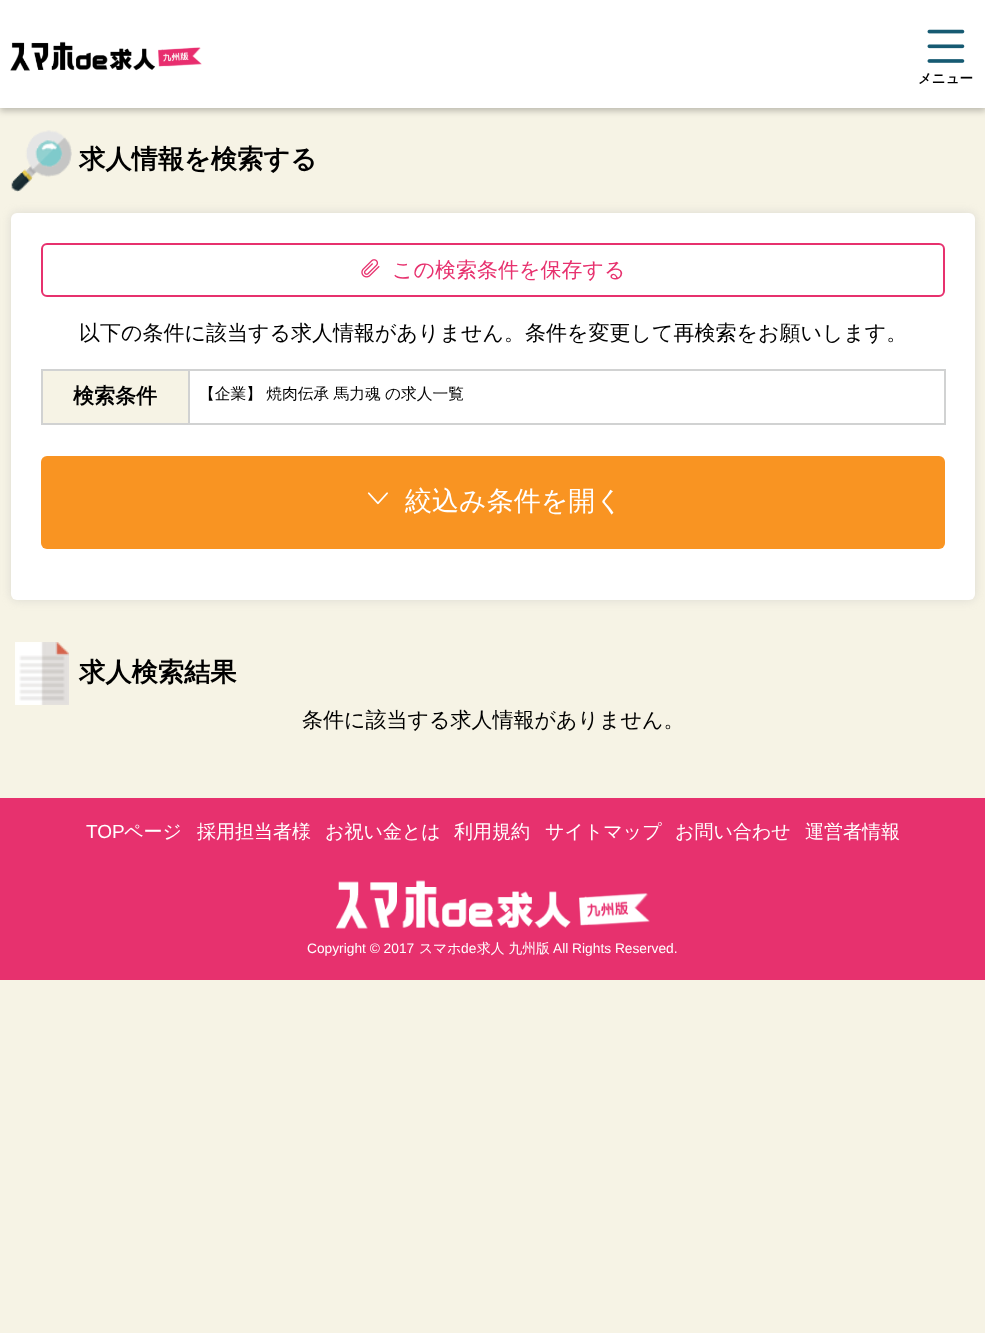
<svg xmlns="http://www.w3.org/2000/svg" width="985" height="1333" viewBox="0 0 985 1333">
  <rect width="100%" height="100%" fill="#f6f3e5"/>
  <path d="M0 3h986v108H0z" fill="#0000003b" filter="blur(3px)"/>
  <path d="M0 0h985v108H0z" fill="#fff"/>
  <image x="10" y="41" width="192" height="30" href="img/1.png"/>
  <image x="927" y="29" width="38" height="34" href="img/2.png"/>
  <image x="11" y="130" width="61" height="62" href="img/3.png"/>
  <rect x="11" y="213" width="964" height="387" rx="6" fill="#b5b5b566" filter="blur(5px)"/>
  <rect x="11" y="213" width="964" height="387" rx="6" fill="#fff"/>
  <rect x="42" y="244" width="902" height="52" rx="5" fill="none" stroke="#e7316e" stroke-width="2"/>
  <image x="361" y="259" width="19" height="19" href="img/4.png"/>
  <path d="M43 371h145v52H43z" fill="#f6f3e5"/>
  <path d="M188 369h757v2H188z" fill="#d1d2d2"/>
  <path d="M944 369h2v56H944z" fill="#d1d2d2"/>
  <path d="M188 423h757v2H188z" fill="#d1d2d2"/>
  <path d="M188 369h2v56H188z" fill="#d1d2d2"/>
  <path d="M41 369h148v2H41z" fill="#d1d2d2"/>
  <path d="M41 423h148v2H41z" fill="#d1d2d2"/>
  <path d="M41 369h2v56H41z" fill="#d1d2d2"/>
  <rect x="41" y="456" width="904" height="93" rx="6" fill="#f99422"/>
  <image x="367" y="492" width="21" height="13" href="img/5.png"/>
  <image x="15" y="642" width="54" height="63" href="img/6.png"/>
  <path d="M0 798h985v182H0z" fill="#e7316e"/>
  <image x="336" y="880" width="314" height="49" href="img/7.png"/>
  <text x="918" y="83" font-family="WenQuanYi Zen Hei" font-size="13.5" font-weight="bold" fill="#000">メニュー</text>
  <text x="79" y="168" font-family="WenQuanYi Zen Hei" font-size="26.25" font-weight="bold" fill="#000">求人情報を検索する</text>
  <text x="392" y="277" font-family="WenQuanYi Zen Hei" font-size="21" font-weight="500" fill="#e7316e">この検索条件を保存する</text>
  <text x="79" y="340" font-family="WenQuanYi Zen Hei" font-size="21" font-weight="500" fill="#000">以下の条件に該当する求人情報がありません。条件を変更して再検索をお願いします。</text>
  <text x="73" y="403" font-family="WenQuanYi Zen Hei" font-size="21" font-weight="bold" fill="#000">検索条件</text>
  <text x="199" y="399" word-spacing="-0.5" font-family="WenQuanYi Zen Hei" font-size="15.75" font-weight="500" fill="#000">【企業】 焼肉伝承 馬力魂 の求人一覧</text>
  <text x="405" y="510" font-family="WenQuanYi Zen Hei" font-size="27" font-weight="500" fill="#fff">絞込み条件を開く</text>
  <text x="79" y="681" font-family="WenQuanYi Zen Hei" font-size="26.25" font-weight="bold" fill="#000">求人検索結果</text>
  <text x="302" y="727" font-family="WenQuanYi Zen Hei" font-size="21" font-weight="500" fill="#000">条件に該当する求人情報がありません。</text>
  <text x="86" y="838" font-family="Liberation Sans" font-size="19" fill="#fff">TOP</text>
  <g font-family="WenQuanYi Zen Hei" font-size="19" font-weight="500" fill="#fff">
    <text x="124" y="838">ページ</text>
    <text x="197" y="838">採用担当者様</text>
    <text x="325" y="838">お祝い金とは</text>
    <text x="454" y="838">利用規約</text>
    <text x="545" y="838">サイトマップ</text>
    <text x="675" y="838">お問い合わせ</text>
    <text x="805" y="838">運営者情報</text>
  </g>
  <text x="307" y="953" font-family="Liberation Sans" font-size="13.75" fill="#fff">Copyright © 2017</text>
  <text x="419" y="953" font-family="WenQuanYi Zen Hei" font-size="13.75" font-weight="500" fill="#fff">スマホ</text>
  <text x="461" y="953" font-family="Liberation Sans" font-size="13.75" fill="#fff">de</text>
  <text x="477" y="953" font-family="WenQuanYi Zen Hei" font-size="13.75" font-weight="500" fill="#fff">求人 九州版</text>
  <text x="553" y="953" font-family="Liberation Sans" font-size="13.75" fill="#fff">All Rights Reserved.</text>
</svg>
